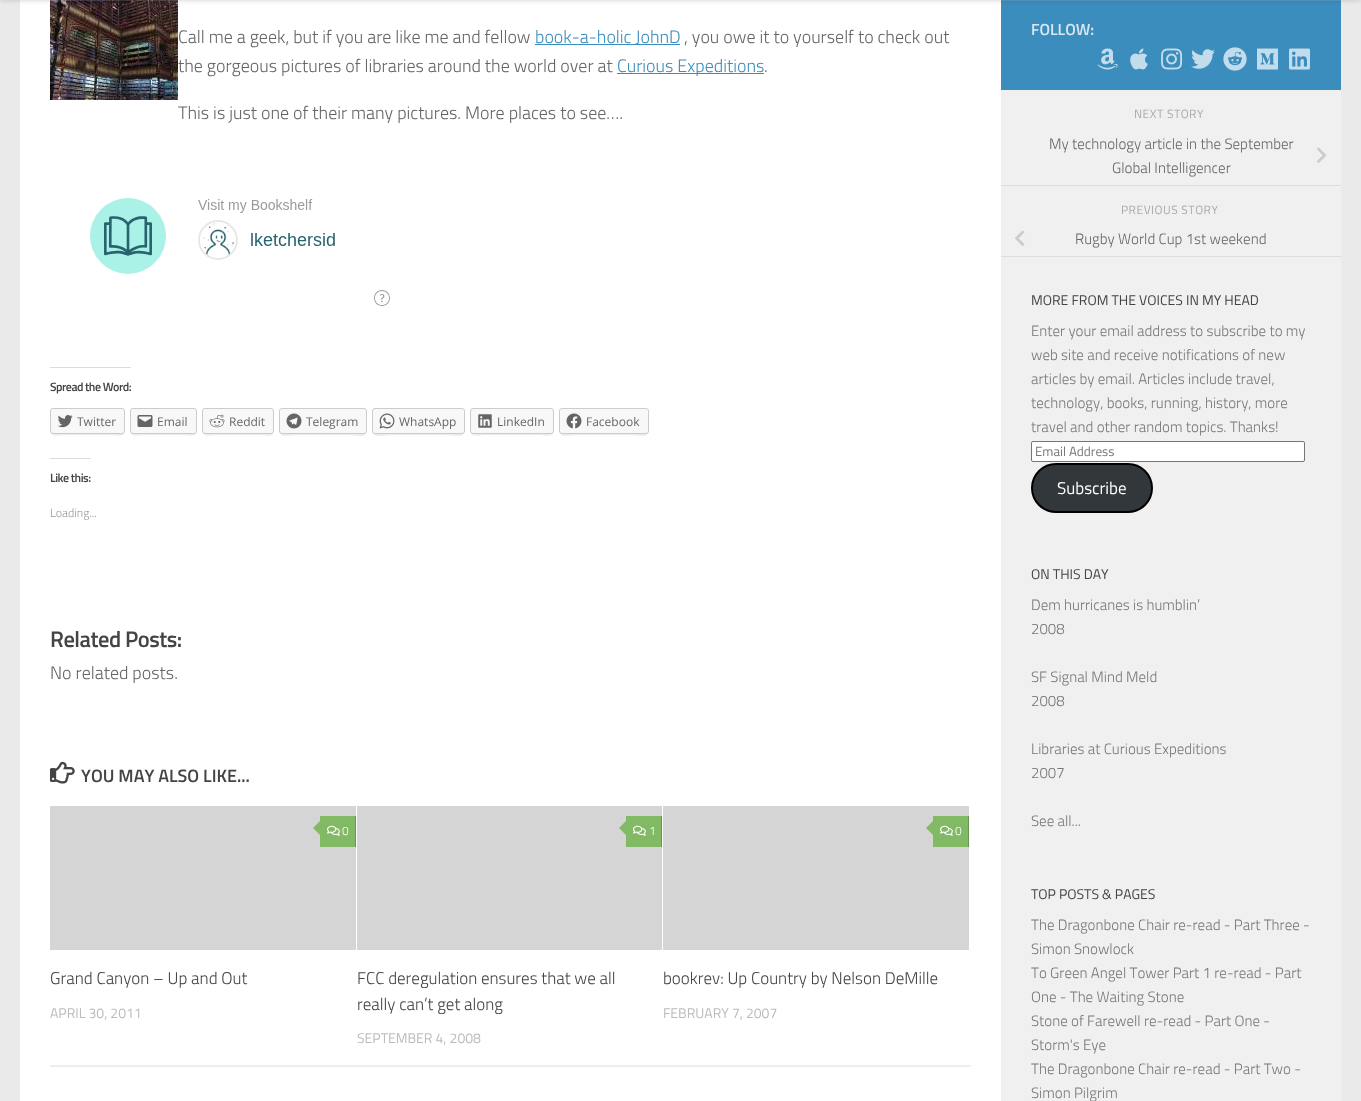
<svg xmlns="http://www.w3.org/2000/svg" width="1361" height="1101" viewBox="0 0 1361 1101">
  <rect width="100%" height="100%" fill="#eaeaea"/>
  <path d="M20 0h981v1101H20z" fill="#fff"/>
  <image x="50" y="0" width="128" height="100" href="img/1.png"/>
  <path d="M1001 0h340v90H1001z" fill="#3b8dbd"/>
  <path d="M0 0h1361v1H0z" fill="#ffffff26"/>
  <path d="M0 -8h1361v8H0z" fill="#00000033" filter="blur(2.5px)"/>
  <path d="M535 44h145v1H535z" fill="#3b8dbd"/>
  <path d="M617 73h147v1H617z" fill="#3b8dbd"/>
  <image x="90" y="198" width="300" height="108" href="img/2.png"/>
  <path d="M50 367h81v1H50z" fill="#dcdcde"/>
  <path d="M50 431C50 438 60 435 64 435H110C115 435 125 438 125 431C125 433 124 434 122 434H53C51 434 50 433 50 431Z" fill="#ebebeb"/>
  <rect x="50.5" y="408.5" width="74" height="25" rx="2.5" fill="#f8f8f8" stroke="#ccc"/>
  <image x="57" y="415" width="16" height="13" href="img/3.png"/>
  <path d="M130 431C130 438 139 435 143 435H184C188 435 197 438 197 431C197 433 196 434 194 434H133C131 434 130 433 130 431Z" fill="#ebebeb"/>
  <rect x="130.5" y="408.5" width="66" height="25" rx="2.5" fill="#f8f8f8" stroke="#ccc"/>
  <image x="137" y="415" width="16" height="12" href="img/4.png"/>
  <path d="M202 431C202 438 212 435 216 435H260C264 435 274 438 274 431C274 433 273 434 271 434H205C203 434 202 433 202 431Z" fill="#ebebeb"/>
  <rect x="202.5" y="408.5" width="71" height="25" rx="2.5" fill="#f8f8f8" stroke="#ccc"/>
  <image x="209" y="414" width="16" height="14" href="img/5.png"/>
  <path d="M279 431C279 439 292 435 296 435H350C354 435 367 439 367 431C367 433 366 434 364 434H282C280 434 279 433 279 431Z" fill="#ebebeb"/>
  <rect x="279.5" y="408.5" width="87" height="25" rx="2.5" fill="#f8f8f8" stroke="#ccc"/>
  <image x="286" y="413" width="16" height="16" href="img/6.png"/>
  <path d="M372 431C372 439 386 435 390 435H448C451 435 465 439 465 431C465 433 464 434 462 434H375C373 434 372 433 372 431Z" fill="#ebebeb"/>
  <rect x="372.5" y="408.5" width="92" height="25" rx="2.5" fill="#f8f8f8" stroke="#ccc"/>
  <image x="379" y="413" width="16" height="16" href="img/7.png"/>
  <path d="M470 431C470 438 482 435 486 435H538C542 435 554 438 554 431C554 433 553 434 551 434H473C471 434 470 433 470 431Z" fill="#ebebeb"/>
  <rect x="470.5" y="408.5" width="83" height="25" rx="2.5" fill="#f8f8f8" stroke="#ccc"/>
  <image x="478" y="414" width="14" height="14" href="img/8.png"/>
  <path d="M559 431C559 439 572 435 576 435H632C636 435 649 439 649 431C649 433 648 434 646 434H562C560 434 559 433 559 431Z" fill="#ebebeb"/>
  <rect x="559.5" y="408.5" width="89" height="25" rx="2.5" fill="#f8f8f8" stroke="#ccc"/>
  <image x="566" y="413" width="16" height="16" href="img/9.png"/>
  <path d="M50 458h41v1H50z" fill="#dcdcde"/>
  <image x="50" y="761" width="25" height="23" href="img/10.png"/>
  <path d="M50 1065h921v2H50z" fill="#eee"/>
  <path d="M50 806h306v144H50z" fill="#d5d5d5"/>
  <path d="M320 816h35v31H320z" fill="#82b965"/>
  <path d="M355 816h1v31H355z" fill="#689451"/>
  <path d="M322 819V837L313 828Z" fill="#82b965"/>
  <image x="327" y="825" width="13" height="11" href="img/11.png"/>
  <path d="M357 806h305v144H357z" fill="#d5d5d5"/>
  <path d="M626 816h35v31H626z" fill="#82b965"/>
  <path d="M661 816h1v31H661z" fill="#689451"/>
  <path d="M628 819V837L619 828Z" fill="#82b965"/>
  <image x="633" y="825" width="13" height="11" href="img/11.png"/>
  <path d="M663 806h306v144H663z" fill="#d5d5d5"/>
  <path d="M933 816h35v31H933z" fill="#82b965"/>
  <path d="M968 816h1v31H968z" fill="#689451"/>
  <path d="M935 819V837L926 828Z" fill="#82b965"/>
  <image x="940" y="825" width="13" height="11" href="img/11.png"/>
  <image x="1097" y="48" width="21" height="22" href="img/12.png"/>
  <image x="1130" y="48" width="18" height="22" href="img/13.png"/>
  <image x="1161" y="48" width="22" height="22" href="img/14.png"/>
  <image x="1191" y="49" width="24" height="20" href="img/15.png"/>
  <image x="1223" y="47" width="24" height="24" href="img/16.png"/>
  <image x="1257" y="48" width="21" height="22" href="img/17.png"/>
  <image x="1289" y="48" width="21" height="22" href="img/18.png"/>
  <path d="M1001 90h340v1011H1001z" fill="#f0f0f0"/>
  <path d="M1001 185h340v1H1001z" fill="#ddd"/>
  <image x="1317" y="147" width="10" height="16" href="img/19.png"/>
  <path d="M1001 256h340v1H1001z" fill="#ddd"/>
  <image x="1015" y="230" width="10" height="16" href="img/20.png"/>
  <rect x="1031.5" y="441.5" width="273" height="20" rx="1.5" fill="#fff" stroke="#767676"/>
  <rect x="1032" y="464" width="120" height="48" rx="24" fill="#32373c" stroke="#000" stroke-width="2"/>
  <text x="178" y="43" font-family="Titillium" font-size="18" font-weight="300" fill="#666">Call me a geek, but if you are like me and fellow</text>
  <text x="535" y="43" font-family="Titillium" font-size="18" font-weight="300" fill="#3b8dbd">book-a-holic JohnD</text>
  <g font-family="Titillium" font-size="18" font-weight="300" fill="#666">
    <text x="684" y="43">, you owe it to yourself to check out</text>
    <text x="178" y="72">the gorgeous pictures of libraries around the world over at</text>
  </g>
  <text x="617" y="72" font-family="Titillium" font-size="18" font-weight="300" fill="#3b8dbd">Curious Expeditions</text>
  <g font-family="Titillium" font-size="18" font-weight="300" fill="#666">
    <text x="764" y="72">.</text>
    <text x="178" y="119">This is just one of their many pictures. More places to see….</text>
  </g>
  <text x="50" y="391" font-family="Titillium" font-size="12" font-weight="600" letter-spacing="-0.5" fill="#444">Spread the Word:</text>
  <g font-family="Open Sans" font-size="12" fill="#666">
    <text x="77" y="426">Twitter</text>
    <text x="157" y="426">Email</text>
    <text x="229" y="426">Reddit</text>
    <text x="306" y="426">Telegram</text>
    <text x="399" y="426">WhatsApp</text>
    <text x="497" y="426">LinkedIn</text>
    <text x="586" y="426">Facebook</text>
  </g>
  <text x="50" y="482" font-family="Titillium" font-size="12" font-weight="600" letter-spacing="-0.5" fill="#444">Like this:</text>
  <text x="50" y="517" font-family="Titillium" font-size="12" font-weight="300" fill="#999">Loading...</text>
  <text x="50" y="647" font-family="Titillium" font-size="22.5" font-weight="600" letter-spacing="-0.5" fill="#444">Related Posts:</text>
  <text x="50" y="679" font-family="Titillium" font-size="18" font-weight="300" fill="#666">No related posts.</text>
  <text x="81" y="782" font-family="Titillium" font-size="18" font-weight="600" fill="#444">YOU MAY ALSO LIKE...</text>
  <text x="342" y="835" font-family="Titillium" font-size="12" font-weight="300" fill="#fff">0</text>
  <text x="50" y="984" font-family="Titillium" font-size="17" font-weight="300" fill="#444">Grand Canyon – Up and Out</text>
  <text x="50" y="1018" font-family="Titillium" font-size="14" fill="#bbb">APRIL 30, 2011</text>
  <text x="649" y="835" font-family="Titillium" font-size="12" font-weight="300" fill="#fff">1</text>
  <g font-family="Titillium" font-size="17" font-weight="300" fill="#444">
    <text x="357" y="984">FCC deregulation ensures that we all</text>
    <text x="357" y="1010">really can’t get along</text>
  </g>
  <text x="357" y="1043" font-family="Titillium" font-size="14" fill="#bbb">SEPTEMBER 4, 2008</text>
  <text x="955" y="835" font-family="Titillium" font-size="12" font-weight="300" fill="#fff">0</text>
  <text x="663" y="984" font-family="Titillium" font-size="17" font-weight="300" fill="#444">bookrev: Up Country by Nelson DeMille</text>
  <text x="663" y="1018" font-family="Titillium" font-size="14" fill="#bbb">FEBRUARY 7, 2007</text>
  <text x="1031" y="35" font-family="Titillium" font-size="16" font-weight="600" fill="#d8e8f2">FOLLOW:</text>
  <text x="1134" y="118" font-family="Titillium" font-size="12" letter-spacing="0.5" fill="#aaa">NEXT STORY</text>
  <g font-family="Titillium" font-size="15" font-weight="300" fill="#666">
    <text x="1049" y="149">My technology article in the September</text>
    <text x="1112" y="173">Global Intelligencer</text>
  </g>
  <text x="1121" y="214" font-family="Titillium" font-size="12" letter-spacing="0.5" fill="#aaa">PREVIOUS STORY</text>
  <text x="1075" y="244" font-family="Titillium" font-size="15" font-weight="300" fill="#666">Rugby World Cup 1st weekend</text>
  <text x="1031" y="305" font-family="Titillium" font-size="14" fill="#444">MORE FROM THE VOICES IN MY HEAD</text>
  <g font-family="Titillium" font-size="15" font-weight="300" fill="#777">
    <text x="1031" y="336">Enter your email address to subscribe to my</text>
    <text x="1031" y="360">web site and receive notifications of new</text>
    <text x="1031" y="384">articles by email. Articles include travel,</text>
    <text x="1031" y="408">technology, books, running, history, more</text>
    <text x="1031" y="432">travel and other random topics. Thanks!</text>
  </g>
  <text x="1035" y="456" font-family="Titillium" font-size="13.25" fill="#777">Email Address</text>
  <text x="1057" y="494" font-family="Titillium" font-size="17" fill="#fff">Subscribe</text>
  <text x="1031" y="579" font-family="Titillium" font-size="14" fill="#444">ON THIS DAY</text>
  <g font-family="Titillium" font-size="15" font-weight="300" fill="#777">
    <text x="1031" y="610">Dem hurricanes is humblin’</text>
    <text x="1031" y="634">2008</text>
    <text x="1031" y="682">SF Signal Mind Meld</text>
    <text x="1031" y="706">2008</text>
    <text x="1031" y="754">Libraries at Curious Expeditions</text>
    <text x="1031" y="778">2007</text>
    <text x="1031" y="826">See all...</text>
  </g>
  <text x="1031" y="899" font-family="Titillium" font-size="14" fill="#444">TOP POSTS &amp; PAGES</text>
  <g font-family="Titillium" font-size="15" font-weight="300" fill="#777">
    <text x="1031" y="930">The Dragonbone Chair re-read - Part Three -</text>
    <text x="1031" y="954">Simon Snowlock</text>
    <text x="1031" y="978">To Green Angel Tower Part 1 re-read - Part</text>
    <text x="1031" y="1002">One - The Waiting Stone</text>
    <text x="1031" y="1026">Stone of Farewell re-read - Part One -</text>
    <text x="1031" y="1050">Storm's Eye</text>
    <text x="1031" y="1074">The Dragonbone Chair re-read - Part Two -</text>
    <text x="1031" y="1098">Simon Pilgrim</text>
  </g>
</svg>
